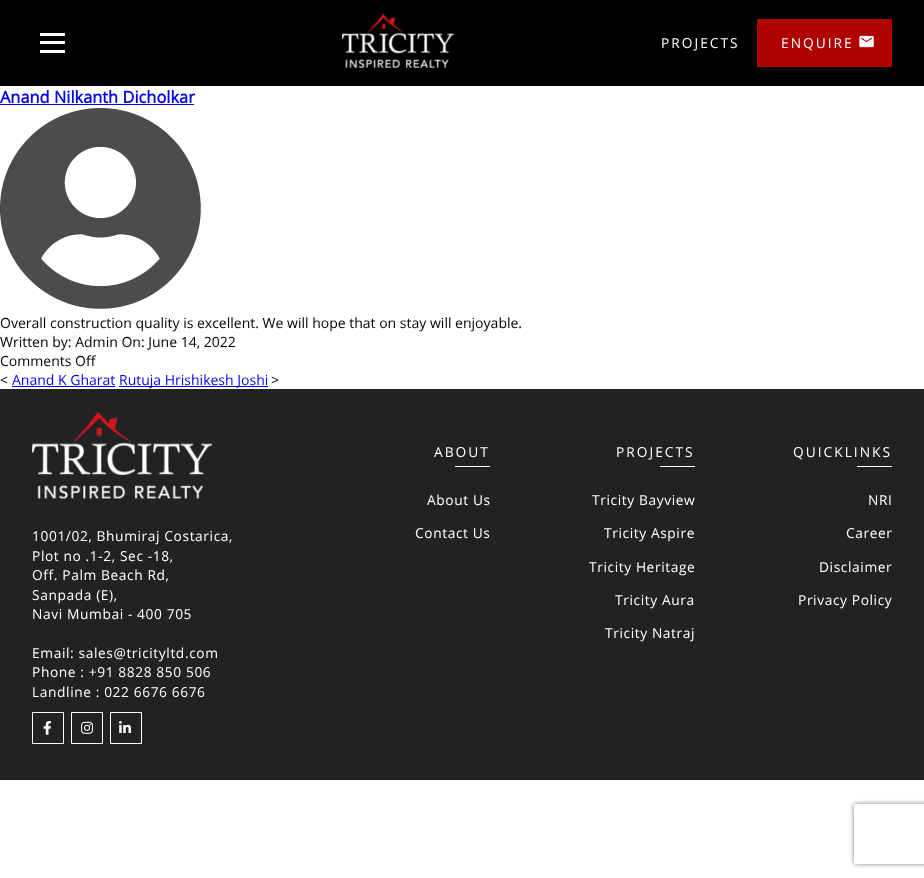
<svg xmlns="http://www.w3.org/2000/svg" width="924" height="878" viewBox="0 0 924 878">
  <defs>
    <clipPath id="clip1"><path d="M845 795H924V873H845ZM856 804H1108C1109 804 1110 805 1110 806V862C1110 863 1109 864 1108 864H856C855 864 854 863 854 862V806C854 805 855 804 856 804Z" clip-rule="evenodd"/></clipPath>
  </defs>
  <rect width="100%" height="100%" fill="#fff"/>
  <path d="M0 0h924v86H0z" fill="#000"/>
  <path d="M40 33h25v3H40z" fill="#fff"/>
  <path d="M40 41h25v3H40z" fill="#fff"/>
  <path d="M40 50h25v3H40z" fill="#fff"/>
  <image x="342" y="14" width="112" height="54" href="img/1.png"/>
  <path d="M757 19h135v48H757z" fill="#af0100"/>
  <image x="859" y="35" width="15" height="13" href="img/2.png"/>
  <path d="M0 104h194v1H0z" fill="#00e"/>
  <image x="0" y="108" width="201" height="201" href="img/3.png"/>
  <path d="M12 386h103v1H12z" fill="#00e"/>
  <path d="M119 386h149v1H119z" fill="#00e"/>
  <path d="M0 389h924v391H0z" fill="#222"/>
  <image x="32" y="412" width="180" height="87" href="img/4.png"/>
  <path d="M32.5 712.5h31v31H32.5z" fill="none" stroke="#fff"/>
  <image x="43" y="721" width="8" height="14" href="img/5.png"/>
  <path d="M71.5 712.5h31v31H71.5z" fill="none" stroke="#fff"/>
  <image x="81" y="721" width="12" height="13" href="img/6.png"/>
  <path d="M110.5 712.5h31v31H110.5z" fill="none" stroke="#fff"/>
  <image x="119" y="721" width="12" height="12" href="img/7.png"/>
  <path d="M455 466h35v1H455z" fill="#fff"/>
  <path d="M660 466h35v1H660z" fill="#fff"/>
  <path d="M857 466h35v1H857z" fill="#fff"/>
  <g clip-path="url(#clip1)">
    <rect x="854" y="804" width="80" height="60" rx="2" fill="#808080" filter="blur(2.5px)"/>
  </g>
  <g font-family="Open Sans" font-size="13.75" letter-spacing="2" fill="#fff">
    <text x="661" y="48">PROJECTS</text>
    <text x="781" y="48">ENQUIRE</text>
  </g>
  <text x="0" y="103" font-family="Open Sans" font-size="16.4" font-weight="bold" fill="#00e">Anand Nilkanth Dicholkar</text>
  <g font-family="Open Sans" font-size="14" fill="#000">
    <text x="0" y="328">Overall construction quality is excellent. We will hope that on stay will enjoyable.</text>
    <text x="0" y="347">Written by: Admin On: June 14, 2022</text>
    <text x="0" y="366">Comments Off</text>
    <text x="0" y="385">&lt;</text>
  </g>
  <g font-family="Open Sans" font-size="14" fill="#00e">
    <text x="12" y="385">Anand K Gharat</text>
    <text x="119" y="385">Rutuja Hrishikesh Joshi</text>
  </g>
  <text x="271" y="385" font-family="Open Sans" font-size="14" fill="#000">&gt;</text>
  <g font-family="Open Sans" font-size="13.75" letter-spacing="0.6" fill="#fff">
    <text x="32" y="541">1001/02, Bhumiraj Costarica,</text>
    <text x="32" y="561">Plot no .1-2, Sec -18,</text>
    <text x="32" y="580">Off. Palm Beach Rd,</text>
    <text x="32" y="600">Sanpada (E),</text>
    <text x="32" y="619">Navi Mumbai - 400 705</text>
    <text x="32" y="658">Email: sales@tricityltd.com</text>
    <text x="32" y="677">Phone : +91 8828 850 506</text>
    <text x="32" y="697">Landline : 022 6676 6676</text>
  </g>
  <text x="434" y="457" font-family="Open Sans" font-size="13.75" letter-spacing="2" fill="#fff">ABOUT</text>
  <g font-family="Open Sans" font-size="13.75" letter-spacing="0.6" fill="#fff">
    <text x="427" y="505">About Us</text>
    <text x="415" y="538">Contact Us</text>
  </g>
  <text x="616" y="457" font-family="Open Sans" font-size="13.75" letter-spacing="2" fill="#fff">PROJECTS</text>
  <g font-family="Open Sans" font-size="13.75" letter-spacing="0.6" fill="#fff">
    <text x="592" y="505">Tricity Bayview</text>
    <text x="604" y="538">Tricity Aspire</text>
    <text x="589" y="572">Tricity Heritage</text>
    <text x="615" y="605">Tricity Aura</text>
    <text x="605" y="638">Tricity Natraj</text>
  </g>
  <text x="793" y="457" font-family="Open Sans" font-size="13.75" letter-spacing="2" fill="#fff">QUICKLINKS</text>
  <g font-family="Open Sans" font-size="13.75" letter-spacing="0.6" fill="#fff">
    <text x="868" y="505">NRI</text>
    <text x="846" y="538">Career</text>
    <text x="819" y="572">Disclaimer</text>
    <text x="798" y="605">Privacy Policy</text>
  </g>
</svg>
